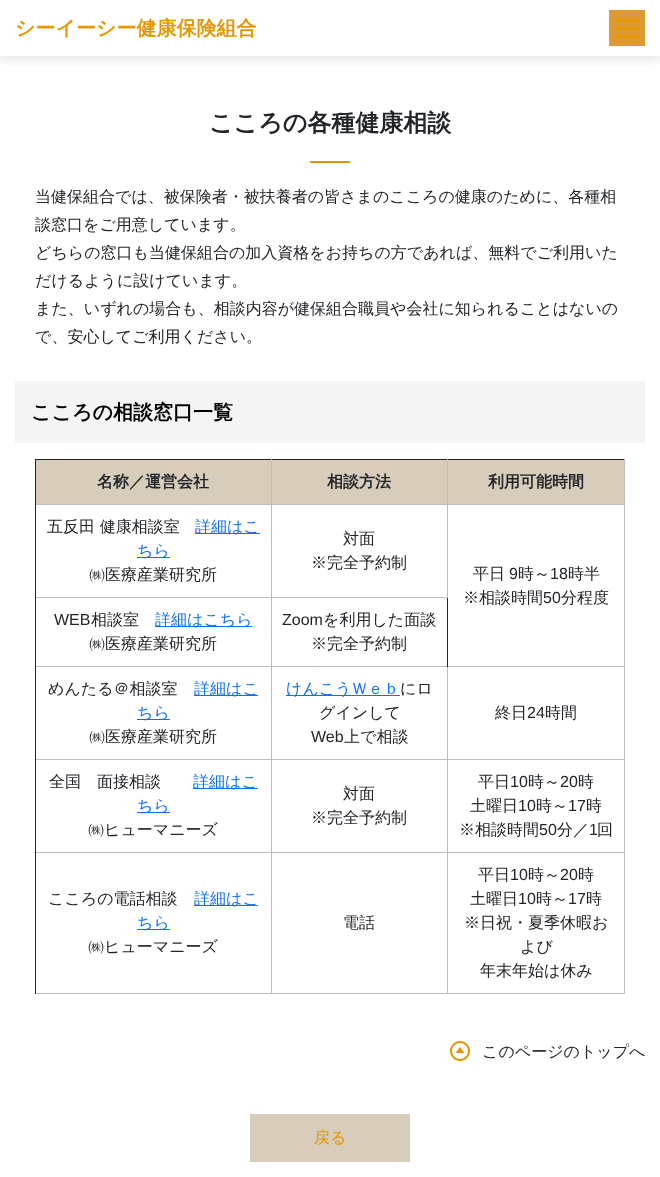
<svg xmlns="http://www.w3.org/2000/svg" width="660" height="1177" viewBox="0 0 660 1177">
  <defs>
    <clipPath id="clip1"><path d="M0 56h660v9H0z"/></clipPath>
  </defs>
  <rect width="100%" height="100%" fill="#fff"/>
  <g clip-path="url(#clip1)">
    <path d="M0 3h660v56H0z" fill="#0000001f" filter="blur(6px)"/>
  </g>
  <path d="M609 10h36v36H609z" fill="#d93"/>
  <rect x="615" y="19" width="24" height="3" rx="1.5" fill="#e59500"/>
  <rect x="615" y="27" width="24" height="3" rx="1.5" fill="#e59500"/>
  <rect x="615" y="35" width="24" height="3" rx="1.5" fill="#e59500"/>
  <path d="M310 161h40v2H310z" fill="#e59500"/>
  <path d="M15 381h630v62H15z" fill="#f4f4f4"/>
  <path d="M36 460h235v44H36z" fill="#d8ccba"/>
  <path d="M35 459h590v1H35z" fill="#212529"/>
  <path d="M624 504h1v490H624z" fill="#bdbdbd"/>
  <path d="M624 459h1v46H624z" fill="#bdbdbd"/>
  <path d="M447 504h1v94H447z" fill="#bdbdbd"/>
  <path d="M447 504h178v1H447z" fill="#bdbdbd"/>
  <path d="M447 459h1v46H447z" fill="#bdbdbd"/>
  <path d="M447 993h178v1H447z" fill="#bdbdbd"/>
  <path d="M447 852h1v142H447z" fill="#bdbdbd"/>
  <path d="M447 852h178v1H447z" fill="#bdbdbd"/>
  <path d="M447 759h1v94H447z" fill="#bdbdbd"/>
  <path d="M447 759h178v1H447z" fill="#bdbdbd"/>
  <path d="M447 666h1v94H447z" fill="#bdbdbd"/>
  <path d="M271 993h177v1H271z" fill="#bdbdbd"/>
  <path d="M271 852h1v142H271z" fill="#bdbdbd"/>
  <path d="M271 852h177v1H271z" fill="#bdbdbd"/>
  <path d="M271 759h1v94H271z" fill="#bdbdbd"/>
  <path d="M271 759h177v1H271z" fill="#bdbdbd"/>
  <path d="M271 666h1v94H271z" fill="#bdbdbd"/>
  <path d="M271 666h354v1H271z" fill="#bdbdbd"/>
  <path d="M271 597h1v70H271z" fill="#bdbdbd"/>
  <path d="M271 597h177v1H271z" fill="#bdbdbd"/>
  <path d="M271 504h1v94H271z" fill="#bdbdbd"/>
  <path d="M271 504h177v1H271z" fill="#bdbdbd"/>
  <path d="M271 459h1v46H271z" fill="#bdbdbd"/>
  <path d="M35 993h237v1H35z" fill="#bdbdbd"/>
  <path d="M35 852h1v142H35z" fill="#212529"/>
  <path d="M35 852h237v1H35z" fill="#bdbdbd"/>
  <path d="M35 759h1v94H35z" fill="#212529"/>
  <path d="M35 759h237v1H35z" fill="#bdbdbd"/>
  <path d="M35 666h1v94H35z" fill="#212529"/>
  <path d="M35 666h237v1H35z" fill="#bdbdbd"/>
  <path d="M35 597h1v70H35z" fill="#212529"/>
  <path d="M35 597h237v1H35z" fill="#bdbdbd"/>
  <path d="M35 504h1v94H35z" fill="#212529"/>
  <path d="M35 504h237v1H35z" fill="#bdbdbd"/>
  <path d="M35 459h1v46H35z" fill="#212529"/>
  <path d="M272 460h175v44H272z" fill="#d8ccba"/>
  <path d="M448 460h176v44H448z" fill="#d8ccba"/>
  <path d="M195 533h65v1H195z" fill="#0d6efd"/>
  <path d="M137 557h33v1H137z" fill="#0d6efd"/>
  <path d="M447 598h1v69H447z" fill="#212529"/>
  <path d="M155 626h97v1H155z" fill="#0d6efd"/>
  <path d="M194 695h64v1H194z" fill="#0d6efd"/>
  <path d="M137 719h33v1H137z" fill="#0d6efd"/>
  <path d="M286 695h114v1H286z" fill="#0d6efd"/>
  <path d="M193 788h65v1H193z" fill="#0d6efd"/>
  <path d="M137 812h33v1H137z" fill="#0d6efd"/>
  <path d="M194 905h64v1H194z" fill="#0d6efd"/>
  <path d="M137 929h33v1H137z" fill="#0d6efd"/>
  <image x="450" y="1041" width="20" height="20" href="img/1.png"/>
  <path d="M250 1114h160v48H250z" fill="#d8ccba"/>
  <text x="15" y="35" font-family="WenQuanYi Zen Hei" font-size="20" font-weight="bold" fill="#e59500">シーイーシー健康保険組合</text>
  <text x="209" y="131" font-family="WenQuanYi Zen Hei" font-size="24" font-weight="bold" fill="#212529">こころの各種健康相談</text>
  <g font-family="WenQuanYi Zen Hei" font-size="16" font-weight="500" fill="#212529">
    <text x="35" y="202">当健保組合では、被保険者・被扶養者の皆さまのこころの健康のために、各種相</text>
    <text x="35" y="230">談窓口をご用意しています。</text>
    <text x="35" y="258">どちらの窓口も当健保組合の加入資格をお持ちの方であれば、無料でご利用いた</text>
    <text x="35" y="286">だけるように設けています。</text>
    <text x="35" y="314">また、いずれの場合も、相談内容が健保組合職員や会社に知られることはないの</text>
    <text x="35" y="342">で、安心してご利用ください。</text>
  </g>
  <text x="31" y="419" font-family="WenQuanYi Zen Hei" font-size="20" font-weight="bold" fill="#000">こころの相談窓口一覧</text>
  <g font-family="WenQuanYi Zen Hei" font-size="16" font-weight="bold" fill="#212529">
    <text x="97" y="487">名称／運営会社</text>
    <text x="327" y="487">相談方法</text>
    <text x="488" y="487">利用可能時間</text>
  </g>
  <text x="47" y="532" font-family="WenQuanYi Zen Hei" font-size="16" font-weight="500" fill="#212529">五反田 健康相談室</text>
  <g font-family="WenQuanYi Zen Hei" font-size="16" font-weight="500" fill="#0d6efd">
    <text x="195" y="532">詳細はこ</text>
    <text x="137" y="556">ちら</text>
  </g>
  <g font-family="WenQuanYi Zen Hei" font-size="16" font-weight="500" fill="#212529">
    <text x="89" y="580">㈱医療産業研究所</text>
    <text x="343" y="544">対面</text>
    <text x="311" y="568">※完全予約制</text>
    <text x="473" y="579">平日</text>
  </g>
  <text x="509" y="579" font-family="Liberation Sans" font-size="16" fill="#212529">9</text>
  <text x="518" y="579" font-family="WenQuanYi Zen Hei" font-size="16" font-weight="500" fill="#212529">時～</text>
  <text x="550" y="579" font-family="Liberation Sans" font-size="16" fill="#212529">18</text>
  <g font-family="WenQuanYi Zen Hei" font-size="16" font-weight="500" fill="#212529">
    <text x="568" y="579">時半</text>
    <text x="463" y="603">※相談時間</text>
  </g>
  <text x="543" y="603" font-family="Liberation Sans" font-size="16" fill="#212529">50</text>
  <text x="561" y="603" font-family="WenQuanYi Zen Hei" font-size="16" font-weight="500" fill="#212529">分程度</text>
  <text x="54" y="625" font-family="Liberation Sans" font-size="16" fill="#212529">WEB</text>
  <text x="91" y="625" font-family="WenQuanYi Zen Hei" font-size="16" font-weight="500" fill="#212529">相談室</text>
  <text x="155" y="625" font-family="WenQuanYi Zen Hei" font-size="16" font-weight="500" fill="#0d6efd">詳細はこちら</text>
  <text x="89" y="649" font-family="WenQuanYi Zen Hei" font-size="16" font-weight="500" fill="#212529">㈱医療産業研究所</text>
  <text x="282" y="625" font-family="Liberation Sans" font-size="16" fill="#212529">Zoom</text>
  <g font-family="WenQuanYi Zen Hei" font-size="16" font-weight="500" fill="#212529">
    <text x="323" y="625">を利用した面談</text>
    <text x="311" y="649">※完全予約制</text>
    <text x="48" y="694">めんたる＠相談室</text>
  </g>
  <g font-family="WenQuanYi Zen Hei" font-size="16" font-weight="500" fill="#0d6efd">
    <text x="194" y="694">詳細はこ</text>
    <text x="137" y="718">ちら</text>
  </g>
  <text x="89" y="742" font-family="WenQuanYi Zen Hei" font-size="16" font-weight="500" fill="#212529">㈱医療産業研究所</text>
  <text x="286" y="694" font-family="WenQuanYi Zen Hei" font-size="16" font-weight="500" fill="#0d6efd">けんこうＷｅｂ</text>
  <g font-family="WenQuanYi Zen Hei" font-size="16" font-weight="500" fill="#212529">
    <text x="400" y="694">にロ</text>
    <text x="319" y="718">グインして</text>
  </g>
  <text x="311" y="742" font-family="Liberation Sans" font-size="16" fill="#212529">Web</text>
  <g font-family="WenQuanYi Zen Hei" font-size="16" font-weight="500" fill="#212529">
    <text x="344" y="742">上で相談</text>
    <text x="495" y="718">終日</text>
  </g>
  <text x="527" y="718" font-family="Liberation Sans" font-size="16" fill="#212529">24</text>
  <g font-family="WenQuanYi Zen Hei" font-size="16" font-weight="500" fill="#212529">
    <text x="545" y="718">時間</text>
    <text x="49" y="787">全国　面接相談</text>
  </g>
  <g font-family="WenQuanYi Zen Hei" font-size="16" font-weight="500" fill="#0d6efd">
    <text x="193" y="787">詳細はこ</text>
    <text x="137" y="811">ちら</text>
  </g>
  <g font-family="WenQuanYi Zen Hei" font-size="16" font-weight="500" fill="#212529">
    <text x="88" y="835">㈱ヒューマニーズ</text>
    <text x="343" y="799">対面</text>
    <text x="311" y="823">※完全予約制</text>
    <text x="478" y="787">平日</text>
  </g>
  <text x="510" y="787" font-family="Liberation Sans" font-size="16" fill="#212529">10</text>
  <text x="528" y="787" font-family="WenQuanYi Zen Hei" font-size="16" font-weight="500" fill="#212529">時～</text>
  <text x="560" y="787" font-family="Liberation Sans" font-size="16" fill="#212529">20</text>
  <g font-family="WenQuanYi Zen Hei" font-size="16" font-weight="500" fill="#212529">
    <text x="578" y="787">時</text>
    <text x="470" y="811">土曜日</text>
  </g>
  <text x="518" y="811" font-family="Liberation Sans" font-size="16" fill="#212529">10</text>
  <text x="536" y="811" font-family="WenQuanYi Zen Hei" font-size="16" font-weight="500" fill="#212529">時～</text>
  <text x="568" y="811" font-family="Liberation Sans" font-size="16" fill="#212529">17</text>
  <g font-family="WenQuanYi Zen Hei" font-size="16" font-weight="500" fill="#212529">
    <text x="586" y="811">時</text>
    <text x="459" y="835">※相談時間</text>
  </g>
  <text x="539" y="835" font-family="Liberation Sans" font-size="16" fill="#212529">50</text>
  <text x="557" y="835" font-family="WenQuanYi Zen Hei" font-size="16" font-weight="500" fill="#212529">分／</text>
  <text x="589" y="835" font-family="Liberation Sans" font-size="16" fill="#212529">1</text>
  <g font-family="WenQuanYi Zen Hei" font-size="16" font-weight="500" fill="#212529">
    <text x="597" y="835">回</text>
    <text x="48" y="904">こころの電話相談</text>
  </g>
  <g font-family="WenQuanYi Zen Hei" font-size="16" font-weight="500" fill="#0d6efd">
    <text x="194" y="904">詳細はこ</text>
    <text x="137" y="928">ちら</text>
  </g>
  <g font-family="WenQuanYi Zen Hei" font-size="16" font-weight="500" fill="#212529">
    <text x="88" y="952">㈱ヒューマニーズ</text>
    <text x="343" y="928">電話</text>
    <text x="478" y="880">平日</text>
  </g>
  <text x="510" y="880" font-family="Liberation Sans" font-size="16" fill="#212529">10</text>
  <text x="528" y="880" font-family="WenQuanYi Zen Hei" font-size="16" font-weight="500" fill="#212529">時～</text>
  <text x="560" y="880" font-family="Liberation Sans" font-size="16" fill="#212529">20</text>
  <g font-family="WenQuanYi Zen Hei" font-size="16" font-weight="500" fill="#212529">
    <text x="578" y="880">時</text>
    <text x="470" y="904">土曜日</text>
  </g>
  <text x="518" y="904" font-family="Liberation Sans" font-size="16" fill="#212529">10</text>
  <text x="536" y="904" font-family="WenQuanYi Zen Hei" font-size="16" font-weight="500" fill="#212529">時～</text>
  <text x="568" y="904" font-family="Liberation Sans" font-size="16" fill="#212529">17</text>
  <g font-family="WenQuanYi Zen Hei" font-size="16" font-weight="500" fill="#212529">
    <text x="586" y="904">時</text>
    <text x="464" y="928">※日祝・夏季休暇お</text>
    <text x="520" y="952">よび</text>
    <text x="480" y="976">年末年始は休み</text>
    <text x="482" y="1057">このページのトップへ</text>
  </g>
  <text x="314" y="1143" font-family="WenQuanYi Zen Hei" font-size="16" font-weight="500" fill="#e59500">戻る</text>
</svg>
